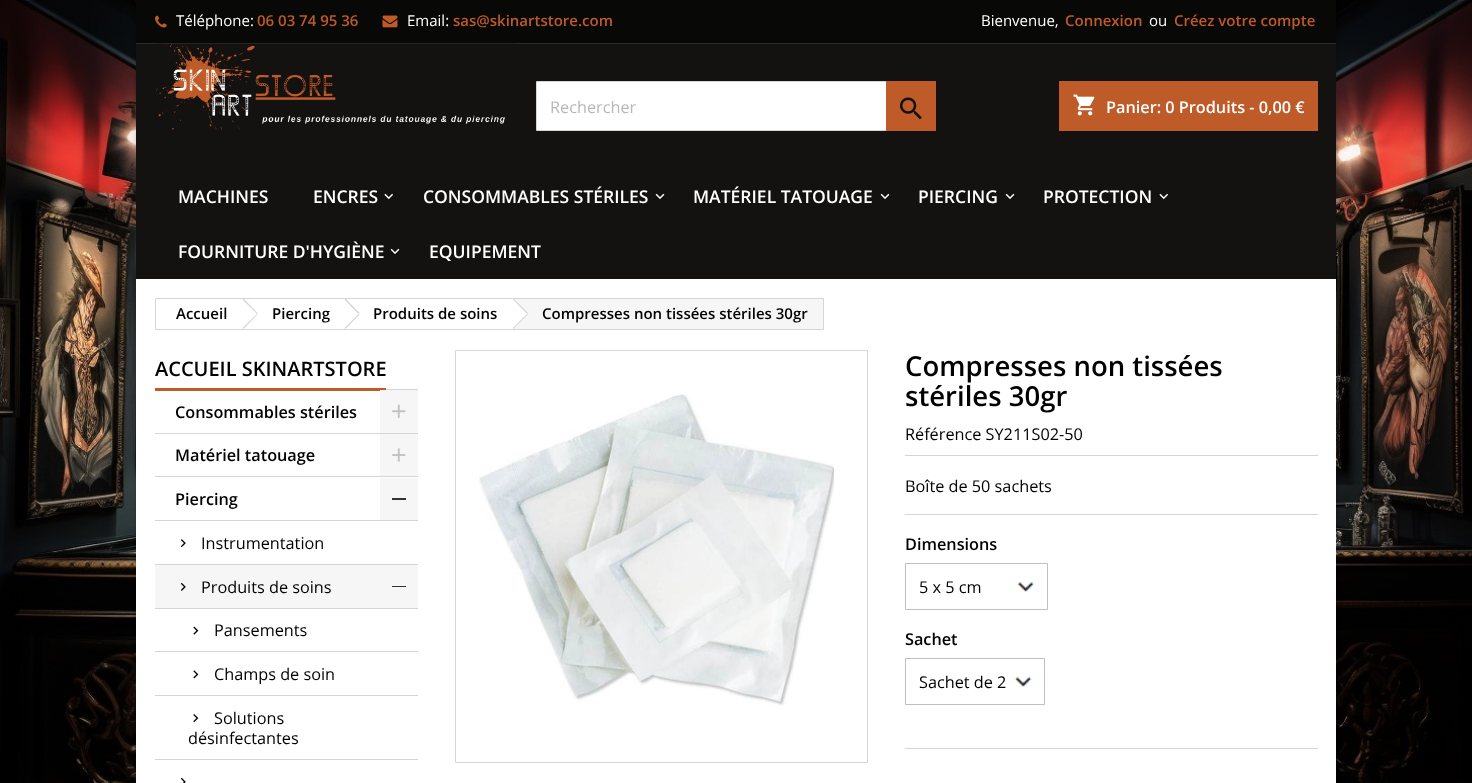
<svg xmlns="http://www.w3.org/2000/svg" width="1472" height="783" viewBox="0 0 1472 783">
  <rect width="100%" height="100%" fill="#fff"/>
  <image x="0" y="0" width="1472" height="783" href="img/1.png"/>
  <path d="M136 0h1200v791H136z" fill="#00000033" filter="blur(2.5px)"/>
  <path d="M136 279h1200v504H136z" fill="#fff"/>
  <path d="M136 0h1200v43H136z" fill="#080807"/>
  <path d="M136 43h1200v1H136z" fill="#2d2d2d"/>
  <image x="155" y="15" width="12" height="13" href="img/2.png"/>
  <image x="382" y="15" width="16" height="13" href="img/3.png"/>
  <path d="M136 44h1200v235H136z" fill="#141111"/>
  <image x="155" y="43" width="362" height="87" href="img/4.png"/>
  <path d="M537 82h349v48H537z" fill="#fff"/>
  <path d="M536.5 81.5h399v49H536.5z" fill="none" stroke="#d6d4d4"/>
  <path d="M886 81h50v50H886z" fill="#be5b28"/>
  <image x="900" y="97" width="22" height="23" href="img/5.png"/>
  <path d="M1059 81h259v50H1059z" fill="#be5b28"/>
  <image x="1073" y="94" width="22" height="22" href="img/6.png"/>
  <image x="384" y="193" width="9" height="7" href="img/7.png"/>
  <image x="655" y="193" width="10" height="6" href="img/8.png"/>
  <image x="880" y="193" width="10" height="6" href="img/8.png"/>
  <image x="1005" y="193" width="10" height="6" href="img/8.png"/>
  <image x="1159" y="193" width="9" height="7" href="img/7.png"/>
  <image x="390" y="248" width="10" height="6" href="img/8.png"/>
  <path d="M155.5 298.5h668v31H155.5z" fill="none" stroke="#d6d4d4"/>
  <path d="M244.5 299.5L257 312C257.5 313 257.5 314.5 257 315.5L244.5 328C243.5 329 242 329 241 328L228.5 315.5C227.5 314.5 227.5 313 228.5 312L241 299.5C242 298.5 243.5 298.5 244.5 299.5Z" fill="#fff"/>
  <path d="M243.5 298.5L257.5 313L257 314L242.5 299.5ZM257 314L257.5 314.5L243.5 329L242.5 328Z" fill="#d6d4d4"/>
  <path d="M514 299h309v30H514z" fill="#f6f6f6"/>
  <path d="M386 389h32v1H386z" fill="#d6d4d4"/>
  <path d="M155 388h231v3H155z" fill="#be5b28"/>
  <path d="M155 433h263v1H155z" fill="#d6d4d4"/>
  <path d="M380 390h38v43H380z" fill="#f6f6f6"/>
  <image x="392" y="404" width="14" height="14" href="img/9.png"/>
  <path d="M155 476h263v1H155z" fill="#d6d4d4"/>
  <path d="M380 434h38v42H380z" fill="#f6f6f6"/>
  <image x="392" y="448" width="14" height="14" href="img/10.png"/>
  <path d="M155 520h263v1H155z" fill="#d6d4d4"/>
  <path d="M380 478h38v42H380z" fill="#f6f6f6"/>
  <path d="M392 498h14v2H392z" fill="#333"/>
  <path d="M155 564h263v1H155z" fill="#d6d4d4"/>
  <image x="180" y="539" width="6" height="9" href="img/11.png"/>
  <path d="M155 565h263v43H155z" fill="#f6f6f6"/>
  <path d="M155 608h263v1H155z" fill="#d6d4d4"/>
  <image x="180" y="582" width="6" height="9" href="img/12.png"/>
  <path d="M392 586h14v1H392z" fill="#333"/>
  <path d="M155 651h263v1H155z" fill="#d6d4d4"/>
  <image x="193" y="626" width="6" height="9" href="img/13.png"/>
  <path d="M155 695h263v1H155z" fill="#d6d4d4"/>
  <image x="193" y="670" width="6" height="9" href="img/14.png"/>
  <path d="M155 759h263v1H155z" fill="#d6d4d4"/>
  <image x="193" y="714" width="6" height="9" href="img/15.png"/>
  <image x="180" y="777" width="6" height="6" href="img/16.png"/>
  <path d="M455.5 350.5h412v412H455.5z" fill="none" stroke="#d6d4d4"/>
  <image x="479" y="394" width="355" height="312" href="img/17.png"/>
  <path d="M905 455h413v1H905z" fill="#d6d4d4"/>
  <path d="M905 514h413v1H905z" fill="#d6d4d4"/>
  <image x="1017" y="582" width="17" height="10" href="img/18.png"/>
  <path d="M905.5 563.5h142v46H905.5z" fill="none" stroke="#bfbfbf"/>
  <image x="1014" y="677" width="18" height="10" href="img/19.png"/>
  <path d="M905.5 658.5h139v46H905.5z" fill="none" stroke="#bfbfbf"/>
  <path d="M905 748h413v1H905z" fill="#d6d4d4"/>
  <text x="176" y="26" font-family="Open Sans" font-size="15" fill="#fff">Téléphone:</text>
  <text x="257" y="26" font-family="Open Sans" font-size="15" font-weight="600" fill="#be5b28">06 03 74 95 36</text>
  <text x="407" y="26" font-family="Open Sans" font-size="15" fill="#fff">Email:</text>
  <text x="453" y="26" font-family="Open Sans" font-size="15" font-weight="600" fill="#be5b28">sas@skinartstore.com</text>
  <text x="981" y="26" font-family="Open Sans" font-size="15" fill="#fff">Bienvenue,</text>
  <text x="1065" y="26" font-family="Open Sans" font-size="15" font-weight="600" fill="#be5b28">Connexion</text>
  <text x="1149" y="26" font-family="Open Sans" font-size="15" fill="#fff">ou</text>
  <text x="1174" y="26" font-family="Open Sans" font-size="15" font-weight="600" fill="#be5b28">Créez votre compte</text>
  <text x="550" y="113" font-family="Open Sans" font-size="16.25" fill="#b7b7b7">Rechercher</text>
  <text x="1106" y="113" font-family="Open Sans" font-size="16.25" font-weight="600" fill="#fff">Panier: 0 Produits - 0,00 €</text>
  <g font-family="Open Sans" font-size="17.5" font-weight="600" fill="#fff">
    <text x="178" y="203">MACHINES</text>
    <text x="313" y="203">ENCRES</text>
    <text x="423" y="203">CONSOMMABLES STÉRILES</text>
    <text x="693" y="203">MATÉRIEL TATOUAGE</text>
    <text x="918" y="203">PIERCING</text>
    <text x="1043" y="203">PROTECTION</text>
    <text x="178" y="258">FOURNITURE D'HYGIÈNE</text>
    <text x="429" y="258">EQUIPEMENT</text>
  </g>
  <g font-family="Open Sans" font-size="15" font-weight="600" fill="#000">
    <text x="176" y="319">Accueil</text>
    <text x="272" y="319">Piercing</text>
  </g>
  <path d="M346.5 299.5L358.5 312C359.5 313 359.5 314.5 358.5 315.5L346.5 328C345.5 329 343.5 329 343 328L330.5 315.5C329.5 314.5 329.5 313 330.5 312L343 299.5C343.5 298.5 345.5 298.5 346.5 299.5Z" fill="#fff"/>
  <path d="M345.5 298.5L359.5 313L358.5 314L344.5 299.5ZM358.5 314L359.5 314.5L345.5 329L344.5 328Z" fill="#d6d4d4"/>
  <text x="373" y="319" font-family="Open Sans" font-size="15" font-weight="600" fill="#000">Produits de soins</text>
  <path d="M514.5 299.5L527 312C528 313 528 314.5 527 315.5L514.5 328C513.5 329 512 329 511 328L498.5 315.5C497.5 314.5 497.5 313 498.5 312L511 299.5C512 298.5 513.5 298.5 514.5 299.5Z" fill="#fff"/>
  <path d="M513.5 298.5L528 313L527 314L513 299.5ZM527 314L528 314.5L513.5 329L513 328Z" fill="#d6d4d4"/>
  <text x="542" y="319" font-family="Open Sans" font-size="15" font-weight="600" fill="#000">Compresses non tissées stériles 30gr</text>
  <text x="155" y="376" font-family="Open Sans" font-size="20" font-weight="600" fill="#000">ACCUEIL SKINARTSTORE</text>
  <g font-family="Open Sans" font-size="16.25" font-weight="600" fill="#000">
    <text x="175" y="418">Consommables stériles</text>
    <text x="175" y="461">Matériel tatouage</text>
    <text x="175" y="505">Piercing</text>
  </g>
  <g font-family="Open Sans" font-size="16.25" fill="#000">
    <text x="201" y="549">Instrumentation</text>
    <text x="201" y="593">Produits de soins</text>
    <text x="214" y="636">Pansements</text>
    <text x="214" y="680">Champs de soin</text>
    <text x="214" y="724">Solutions</text>
    <text x="188" y="744">désinfectantes</text>
  </g>
  <g font-family="Open Sans" font-size="27.5" font-weight="600" fill="#000">
    <text x="905" y="376">Compresses non tissées</text>
    <text x="905" y="406">stériles 30gr</text>
  </g>
  <g font-family="Open Sans" font-size="16.25" fill="#000">
    <text x="905" y="440">Référence SY211S02-50</text>
    <text x="905" y="492">Boîte de 50 sachets</text>
  </g>
  <text x="905" y="550" font-family="Open Sans" font-size="16.25" font-weight="600" fill="#000">Dimensions</text>
  <text x="919" y="593" font-family="Open Sans" font-size="16.25" fill="#000">5 x 5 cm</text>
  <text x="905" y="645" font-family="Open Sans" font-size="16.25" font-weight="600" fill="#000">Sachet</text>
  <text x="919" y="688" font-family="Open Sans" font-size="16.25" fill="#000">Sachet de 2</text>
</svg>
